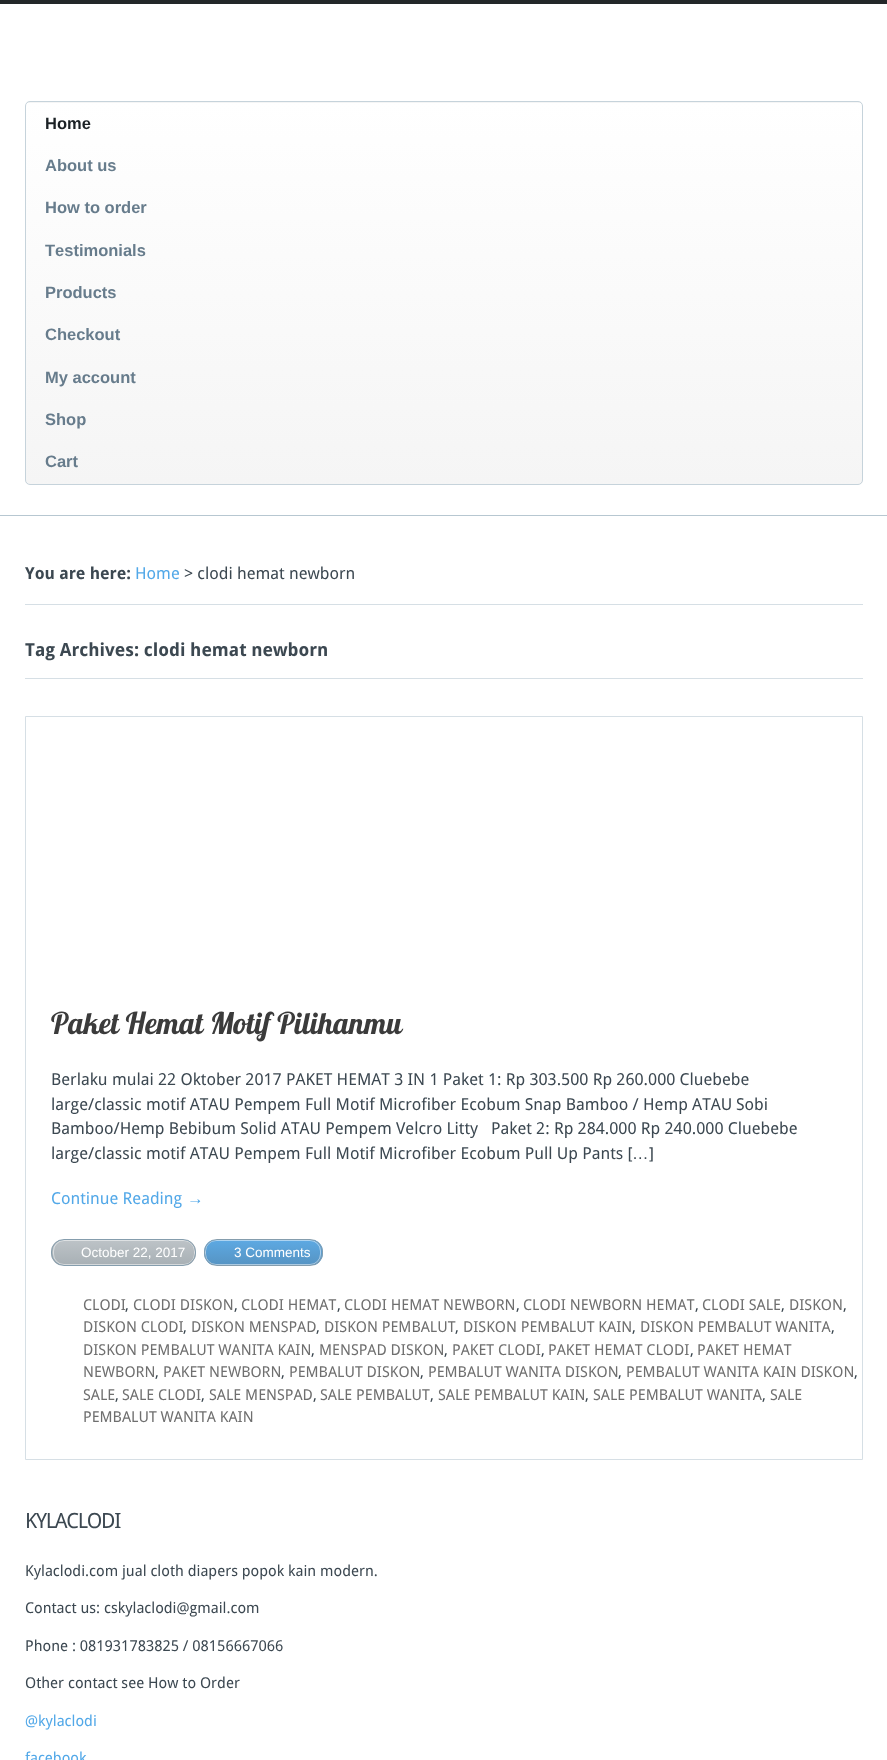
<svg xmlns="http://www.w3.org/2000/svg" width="887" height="1760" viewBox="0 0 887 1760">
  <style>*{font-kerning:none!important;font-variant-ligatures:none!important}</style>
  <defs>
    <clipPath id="clip1"><rect x="25" y="101" width="838" height="384" rx="5"/></clipPath>
    <linearGradient id="g1" gradientUnits="userSpaceOnUse" x1="444" y1="-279" x2="444" y2="103"><stop offset="0" stop-color="#fff"/><stop offset="1" stop-color="#f5f5f5"/></linearGradient>
    <linearGradient id="g2" gradientUnits="userSpaceOnUse" x1="444" y1="102" x2="444" y2="484"><stop offset="0" stop-color="#fff"/><stop offset="1" stop-color="#f5f5f5"/></linearGradient>
    <clipPath id="clip2"><rect x="51" y="1239" width="145" height="27" rx="13"/></clipPath>
    <linearGradient id="g3" gradientUnits="userSpaceOnUse" x1="124" y1="1240" x2="124" y2="1265"><stop offset="0" stop-color="#bdc3c7"/><stop offset="1" stop-color="#a8b0b5"/></linearGradient>
    <clipPath id="clip3"><rect x="204" y="1239" width="119" height="27" rx="13"/></clipPath>
    <linearGradient id="g4" gradientUnits="userSpaceOnUse" x1="263" y1="1240" x2="263" y2="1265"><stop offset="0" stop-color="#5da9e3"/><stop offset="1" stop-color="#5694c3"/></linearGradient>
  </defs>
  <rect width="100%" height="100%" fill="#fff"/>
  <path d="M0 0h887v4H0z" fill="#232729"/>
  <path d="M0 515h887v1H0z" fill="#b7c7d1"/>
  <g clip-path="url(#clip1)">
    <path d="M25 101h838v2H25z" fill="url(#g1)"/>
    <path d="M25 103h838v381H25z" fill="url(#g2)"/>
  </g>
  <rect x="25.5" y="101.5" width="837" height="383" rx="4.5" fill="none" stroke="#c6d3db"/>
  <path d="M25 604h838v1H25z" fill="#d6dfe5"/>
  <path d="M25 678h838v1H25z" fill="#d6dfe5"/>
  <path d="M25.5 716.5h837v743H25.5z" fill="none" stroke="#d6dfe5"/>
  <g clip-path="url(#clip2)">
    <path d="M51 1240h145v25H51z" fill="url(#g3)"/>
  </g>
  <rect x="53.5" y="1240.5" width="141" height="24" rx="10.5" fill="none" stroke="#ffffff80"/>
  <rect x="51.5" y="1239.5" width="144" height="26" rx="12.5" fill="none" stroke="#859dad"/>
  <g clip-path="url(#clip3)">
    <path d="M204 1240h119v25H204z" fill="url(#g4)"/>
  </g>
  <rect x="205.5" y="1240.5" width="115" height="24" rx="10.5" fill="none" stroke="#ffffff80"/>
  <rect x="204.5" y="1239.5" width="118" height="26" rx="12.5" fill="none" stroke="#859dad"/>
  <text x="45" y="129" font-family="Liberation Sans" font-size="16.5" font-weight="bold" fill="#1b2125">Home</text>
  <g font-family="Liberation Sans" font-size="16.5" font-weight="bold" fill="#677c8c">
    <text x="45" y="171">About us</text>
    <text x="45" y="213">How to order</text>
    <text x="45" y="256">Testimonials</text>
    <text x="45" y="298">Products</text>
    <text x="45" y="340">Checkout</text>
    <text x="45" y="383">My account</text>
    <text x="45" y="425">Shop</text>
    <text x="45" y="467">Cart</text>
  </g>
  <text x="25" y="579" font-family="Droid Sans" font-size="16.5" font-weight="bold" fill="#3c4851">You are here:</text>
  <text x="135" y="579" font-family="Droid Sans" font-size="16.5" fill="#52a8e8">Home</text>
  <text x="184" y="579" font-family="Droid Sans" font-size="16.5" fill="#3c4851">&gt; clodi hemat newborn</text>
  <text x="25" y="656" font-family="Droid Sans" font-size="18" font-weight="bold" fill="#3c4851">Tag Archives: clodi hemat newborn</text>
  <text x="51" y="1034" font-family="Lobster" font-size="30" fill="#3b3b3b">Paket Hemat Motif Pilihanmu</text>
  <g font-family="Droid Sans" font-size="16.5" fill="#3c4851">
    <text x="51" y="1085">Berlaku mulai 22 Oktober 2017 PAKET HEMAT 3 IN 1 Paket 1: Rp 303.500 Rp 260.000 Cluebebe</text>
    <text x="51" y="1110">large/classic motif ATAU Pempem Full Motif Microfiber Ecobum Snap Bamboo / Hemp ATAU</text>
    <text x="736" y="1110">Sobi</text>
    <text x="51" y="1134" xml:space="preserve">Bamboo/Hemp Bebibum Solid ATAU Pempem Velcro Litty   Paket 2: Rp 284.000 Rp 240.000 Cluebebe</text>
    <text x="51" y="1159">large/classic motif ATAU Pempem Full Motif Microfiber Ecobum Pull Up Pants [</text>
  </g>
  <text x="632" y="1159" font-family="Liberation Sans" font-size="16.5" fill="#3c4851">…</text>
  <text x="649" y="1159" font-family="Droid Sans" font-size="16.5" fill="#3c4851">]</text>
  <text x="51" y="1204" font-family="Droid Sans" font-size="16.5" fill="#52a8e8">Continue Reading</text>
  <text x="187" y="1204" font-family="Liberation Sans" font-size="16.5" fill="#52a8e8">→</text>
  <g font-family="Liberation Sans" font-size="13.5" fill="#fff">
    <text x="81" y="1257">October 22, 2017</text>
    <text x="234" y="1257">3 Comments</text>
  </g>
  <text x="83" y="1310" font-family="Droid Sans" font-size="15" fill="#6f6f6f">CLODI</text>
  <text x="125" y="1310" font-family="Droid Sans" font-size="15" fill="#3c4851">,</text>
  <text x="133" y="1310" font-family="Droid Sans" font-size="15" fill="#6f6f6f">CLODI DISKON</text>
  <text x="234" y="1310" font-family="Droid Sans" font-size="15" fill="#3c4851">,</text>
  <text x="241" y="1310" font-family="Droid Sans" font-size="15" fill="#6f6f6f">CLODI HEMAT</text>
  <text x="337" y="1310" font-family="Droid Sans" font-size="15" fill="#3c4851">,</text>
  <text x="344" y="1310" font-family="Droid Sans" font-size="15" fill="#6f6f6f">CLODI HEMAT NEWBORN</text>
  <text x="516" y="1310" font-family="Droid Sans" font-size="15" fill="#3c4851">,</text>
  <text x="523" y="1310" font-family="Droid Sans" font-size="15" fill="#6f6f6f">CLODI NEWBORN HEMAT</text>
  <text x="695" y="1310" font-family="Droid Sans" font-size="15" fill="#3c4851">,</text>
  <text x="702" y="1310" font-family="Droid Sans" font-size="15" fill="#6f6f6f">CLODI SALE</text>
  <text x="781" y="1310" font-family="Droid Sans" font-size="15" fill="#3c4851">,</text>
  <text x="789" y="1310" font-family="Droid Sans" font-size="15" fill="#6f6f6f">DISKON</text>
  <text x="843" y="1310" font-family="Droid Sans" font-size="15" fill="#3c4851">,</text>
  <text x="83" y="1332" font-family="Droid Sans" font-size="15" fill="#6f6f6f">DISKON CLODI</text>
  <text x="183" y="1332" font-family="Droid Sans" font-size="15" fill="#3c4851">,</text>
  <text x="191" y="1332" font-family="Droid Sans" font-size="15" fill="#6f6f6f">DISKON MENSPAD</text>
  <text x="316" y="1332" font-family="Droid Sans" font-size="15" fill="#3c4851">,</text>
  <text x="324" y="1332" font-family="Droid Sans" font-size="15" fill="#6f6f6f">DISKON PEMBALUT</text>
  <text x="455" y="1332" font-family="Droid Sans" font-size="15" fill="#3c4851">,</text>
  <text x="463" y="1332" font-family="Droid Sans" font-size="15" fill="#6f6f6f">DISKON PEMBALUT KAIN</text>
  <text x="632" y="1332" font-family="Droid Sans" font-size="15" fill="#3c4851">,</text>
  <text x="640" y="1332" font-family="Droid Sans" font-size="15" fill="#6f6f6f">DISKON PEMBALUT WANITA</text>
  <text x="831" y="1332" font-family="Droid Sans" font-size="15" fill="#3c4851">,</text>
  <text x="83" y="1355" font-family="Droid Sans" font-size="15" fill="#6f6f6f">DISKON PEMBALUT WANITA KAIN</text>
  <text x="311" y="1355" font-family="Droid Sans" font-size="15" fill="#3c4851">,</text>
  <text x="319" y="1355" font-family="Droid Sans" font-size="15" fill="#6f6f6f">MENSPAD DISKON</text>
  <text x="444" y="1355" font-family="Droid Sans" font-size="15" fill="#3c4851">,</text>
  <text x="452" y="1355" font-family="Droid Sans" font-size="15" fill="#6f6f6f">PAKET CLODI</text>
  <text x="541" y="1355" font-family="Droid Sans" font-size="15" fill="#3c4851">,</text>
  <text x="548" y="1355" font-family="Droid Sans" font-size="15" fill="#6f6f6f">PAKET HEMAT CLODI</text>
  <text x="690" y="1355" font-family="Droid Sans" font-size="15" fill="#3c4851">,</text>
  <g font-family="Droid Sans" font-size="15" fill="#6f6f6f">
    <text x="697" y="1355">PAKET HEMAT</text>
    <text x="83" y="1377">NEWBORN</text>
  </g>
  <text x="155" y="1377" font-family="Droid Sans" font-size="15" fill="#3c4851">,</text>
  <text x="163" y="1377" font-family="Droid Sans" font-size="15" fill="#6f6f6f">PAKET NEWBORN</text>
  <text x="281" y="1377" font-family="Droid Sans" font-size="15" fill="#3c4851">,</text>
  <text x="289" y="1377" font-family="Droid Sans" font-size="15" fill="#6f6f6f">PEMBALUT DISKON</text>
  <text x="420" y="1377" font-family="Droid Sans" font-size="15" fill="#3c4851">,</text>
  <text x="428" y="1377" font-family="Droid Sans" font-size="15" fill="#6f6f6f">PEMBALUT WANITA DISKON</text>
  <text x="618" y="1377" font-family="Droid Sans" font-size="15" fill="#3c4851">,</text>
  <text x="626" y="1377" font-family="Droid Sans" font-size="15" fill="#6f6f6f">PEMBALUT WANITA KAIN DISKON</text>
  <text x="854" y="1377" font-family="Droid Sans" font-size="15" fill="#3c4851">,</text>
  <text x="83" y="1400" font-family="Droid Sans" font-size="15" fill="#6f6f6f">SALE</text>
  <text x="115" y="1400" font-family="Droid Sans" font-size="15" fill="#3c4851">,</text>
  <text x="122" y="1400" font-family="Droid Sans" font-size="15" fill="#6f6f6f">SALE CLODI</text>
  <text x="201" y="1400" font-family="Droid Sans" font-size="15" fill="#3c4851">,</text>
  <text x="209" y="1400" font-family="Droid Sans" font-size="15" fill="#6f6f6f">SALE MENSPAD</text>
  <text x="313" y="1400" font-family="Droid Sans" font-size="15" fill="#3c4851">,</text>
  <text x="320" y="1400" font-family="Droid Sans" font-size="15" fill="#6f6f6f">SALE PEMBALUT</text>
  <text x="430" y="1400" font-family="Droid Sans" font-size="15" fill="#3c4851">,</text>
  <text x="438" y="1400" font-family="Droid Sans" font-size="15" fill="#6f6f6f">SALE PEMBALUT KAIN</text>
  <text x="585" y="1400" font-family="Droid Sans" font-size="15" fill="#3c4851">,</text>
  <text x="593" y="1400" font-family="Droid Sans" font-size="15" fill="#6f6f6f">SALE PEMBALUT WANITA</text>
  <text x="762" y="1400" font-family="Droid Sans" font-size="15" fill="#3c4851">,</text>
  <g font-family="Droid Sans" font-size="15" fill="#6f6f6f">
    <text x="770" y="1400">SALE</text>
    <text x="83" y="1422">PEMBALUT WANITA KAIN</text>
  </g>
  <text x="25" y="1528" font-family="Droid Sans" font-size="21" letter-spacing="-1.25" fill="#3c4851">KYLACLODI</text>
  <g font-family="Droid Sans" font-size="15" fill="#3c4851">
    <text x="25" y="1576">Kylaclodi.com jual cloth diapers popok kain modern.</text>
    <text x="25" y="1613">Contact us: cskylaclodi@gmail.com</text>
    <text x="25" y="1651">Phone : 081931783825 / 08156667066</text>
    <text x="25" y="1688">Other contact see How to Order</text>
  </g>
  <g font-family="Droid Sans" font-size="15" fill="#52a8e8">
    <text x="25" y="1726">@kylaclodi</text>
    <text x="25" y="1763">facebook</text>
  </g>
</svg>
